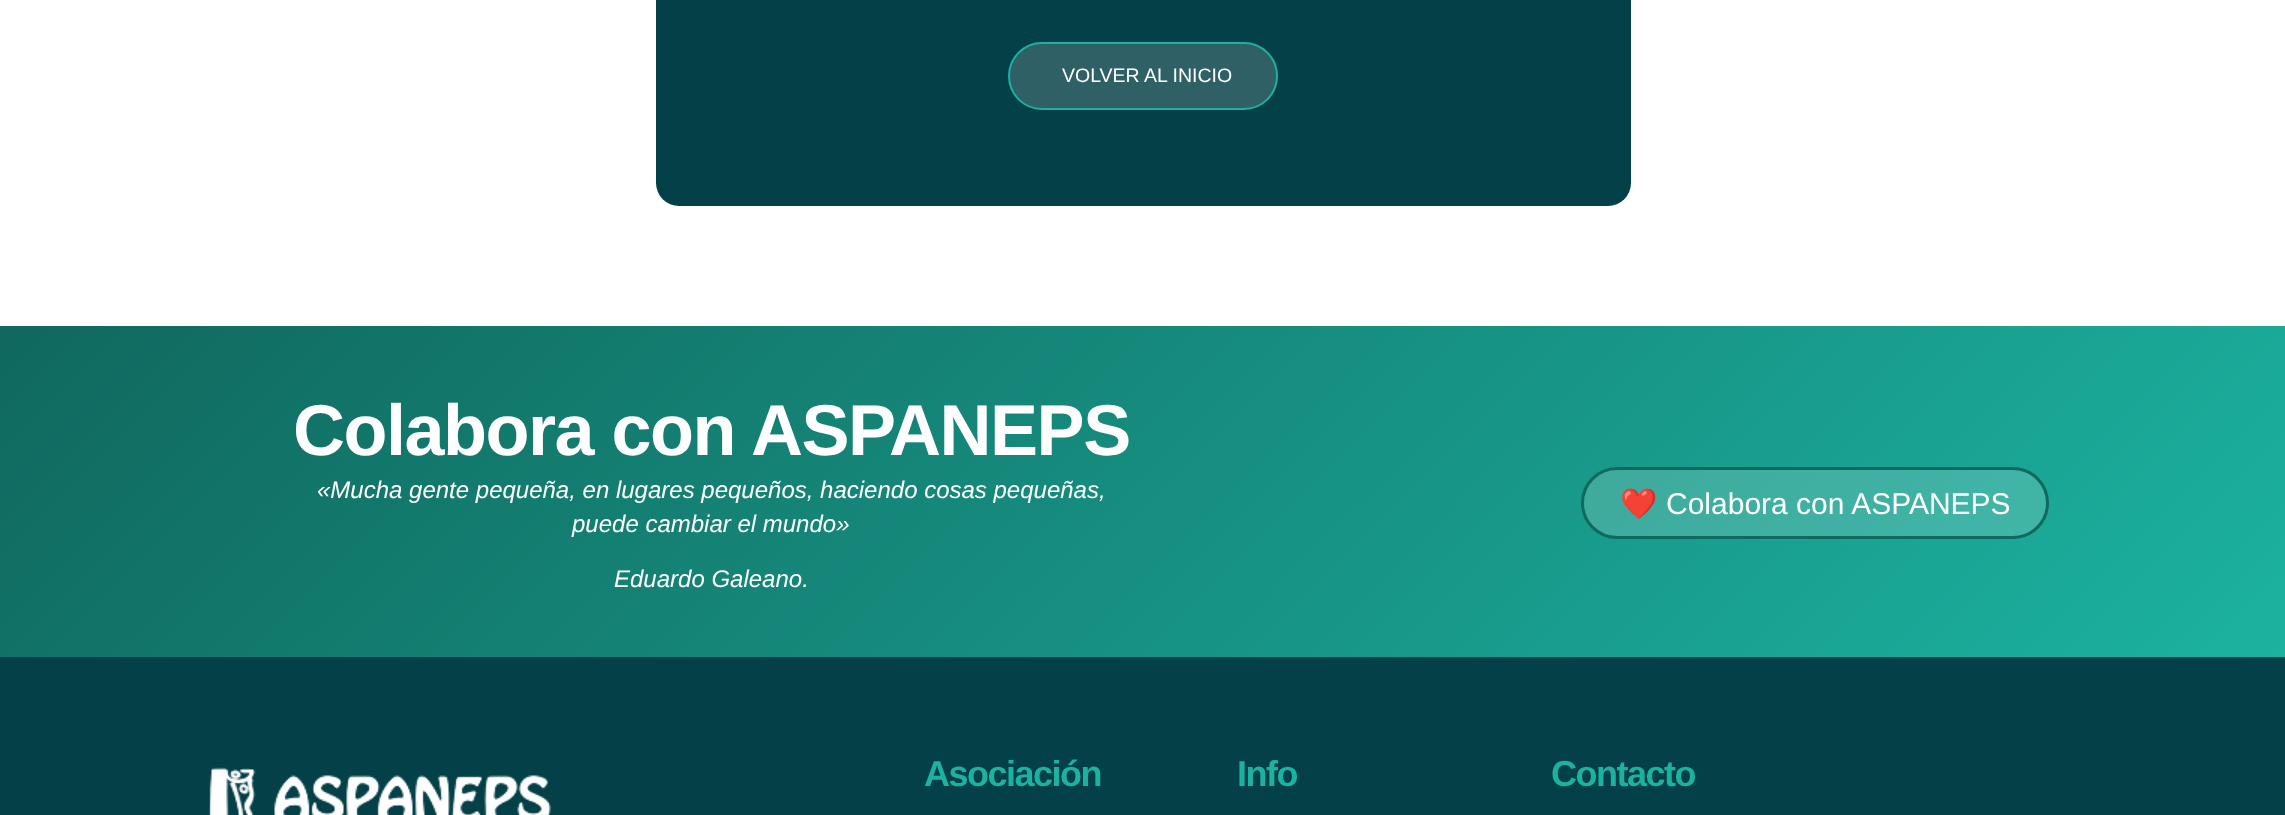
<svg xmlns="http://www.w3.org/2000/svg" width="2285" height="815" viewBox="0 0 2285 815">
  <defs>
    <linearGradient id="g1" gradientUnits="userSpaceOnUse" x1="489" y1="-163" x2="1797" y2="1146"><stop offset="0" stop-color="#10685e"/><stop offset="1" stop-color="#1cb2a0"/></linearGradient>
  </defs>
  <rect width="100%" height="100%" fill="#fff"/>
  <rect x="656" y="-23" width="975" height="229" rx="23" fill="#034047"/>
  <rect x="1009" y="43" width="268" height="66" rx="33" fill="#2e6066" stroke="#1cb2a0" stroke-width="2"/>
  <path d="M0 326h2285v331H0z" fill="url(#g1)"/>
  <rect x="1582.5" y="468.5" width="465" height="69" rx="34.5" fill="#ffffff2b" stroke="#10685e" stroke-width="3"/>
  <path d="M0 657h2285v158H0z" fill="#034047"/>
  <image x="209" y="767" width="342" height="48" href="img/1.png"/>
  <text x="1062" y="82" font-family="Liberation Sans" font-size="19.5" fill="#fff">VOLVER AL INICIO</text>
  <text x="293" y="455" font-family="Liberation Sans" font-size="72" font-weight="bold" letter-spacing="-1.5" fill="#fff">Colabora con ASPANEPS</text>
  <g font-family="Liberation Sans" font-size="24" font-style="italic" fill="#fff">
    <text x="317" y="498">«Mucha gente pequeña, en lugares pequeños, haciendo cosas pequeñas,</text>
    <text x="572" y="532">puede cambiar el mundo»</text>
    <text x="614" y="587">Eduardo Galeano.</text>
  </g>
  <text x="1620" y="514" font-family="Noto Color Emoji" font-size="30" fill="#fff">❤️</text>
  <text x="1666" y="514" font-family="Liberation Sans" font-size="30" fill="#fff">Colabora con ASPANEPS</text>
  <g font-family="Liberation Sans" font-size="36" font-weight="bold" letter-spacing="-1.5" fill="#1cb2a0">
    <text x="924" y="786">Asociación</text>
    <text x="1237" y="786">Info</text>
    <text x="1551" y="786">Contacto</text>
  </g>
</svg>
